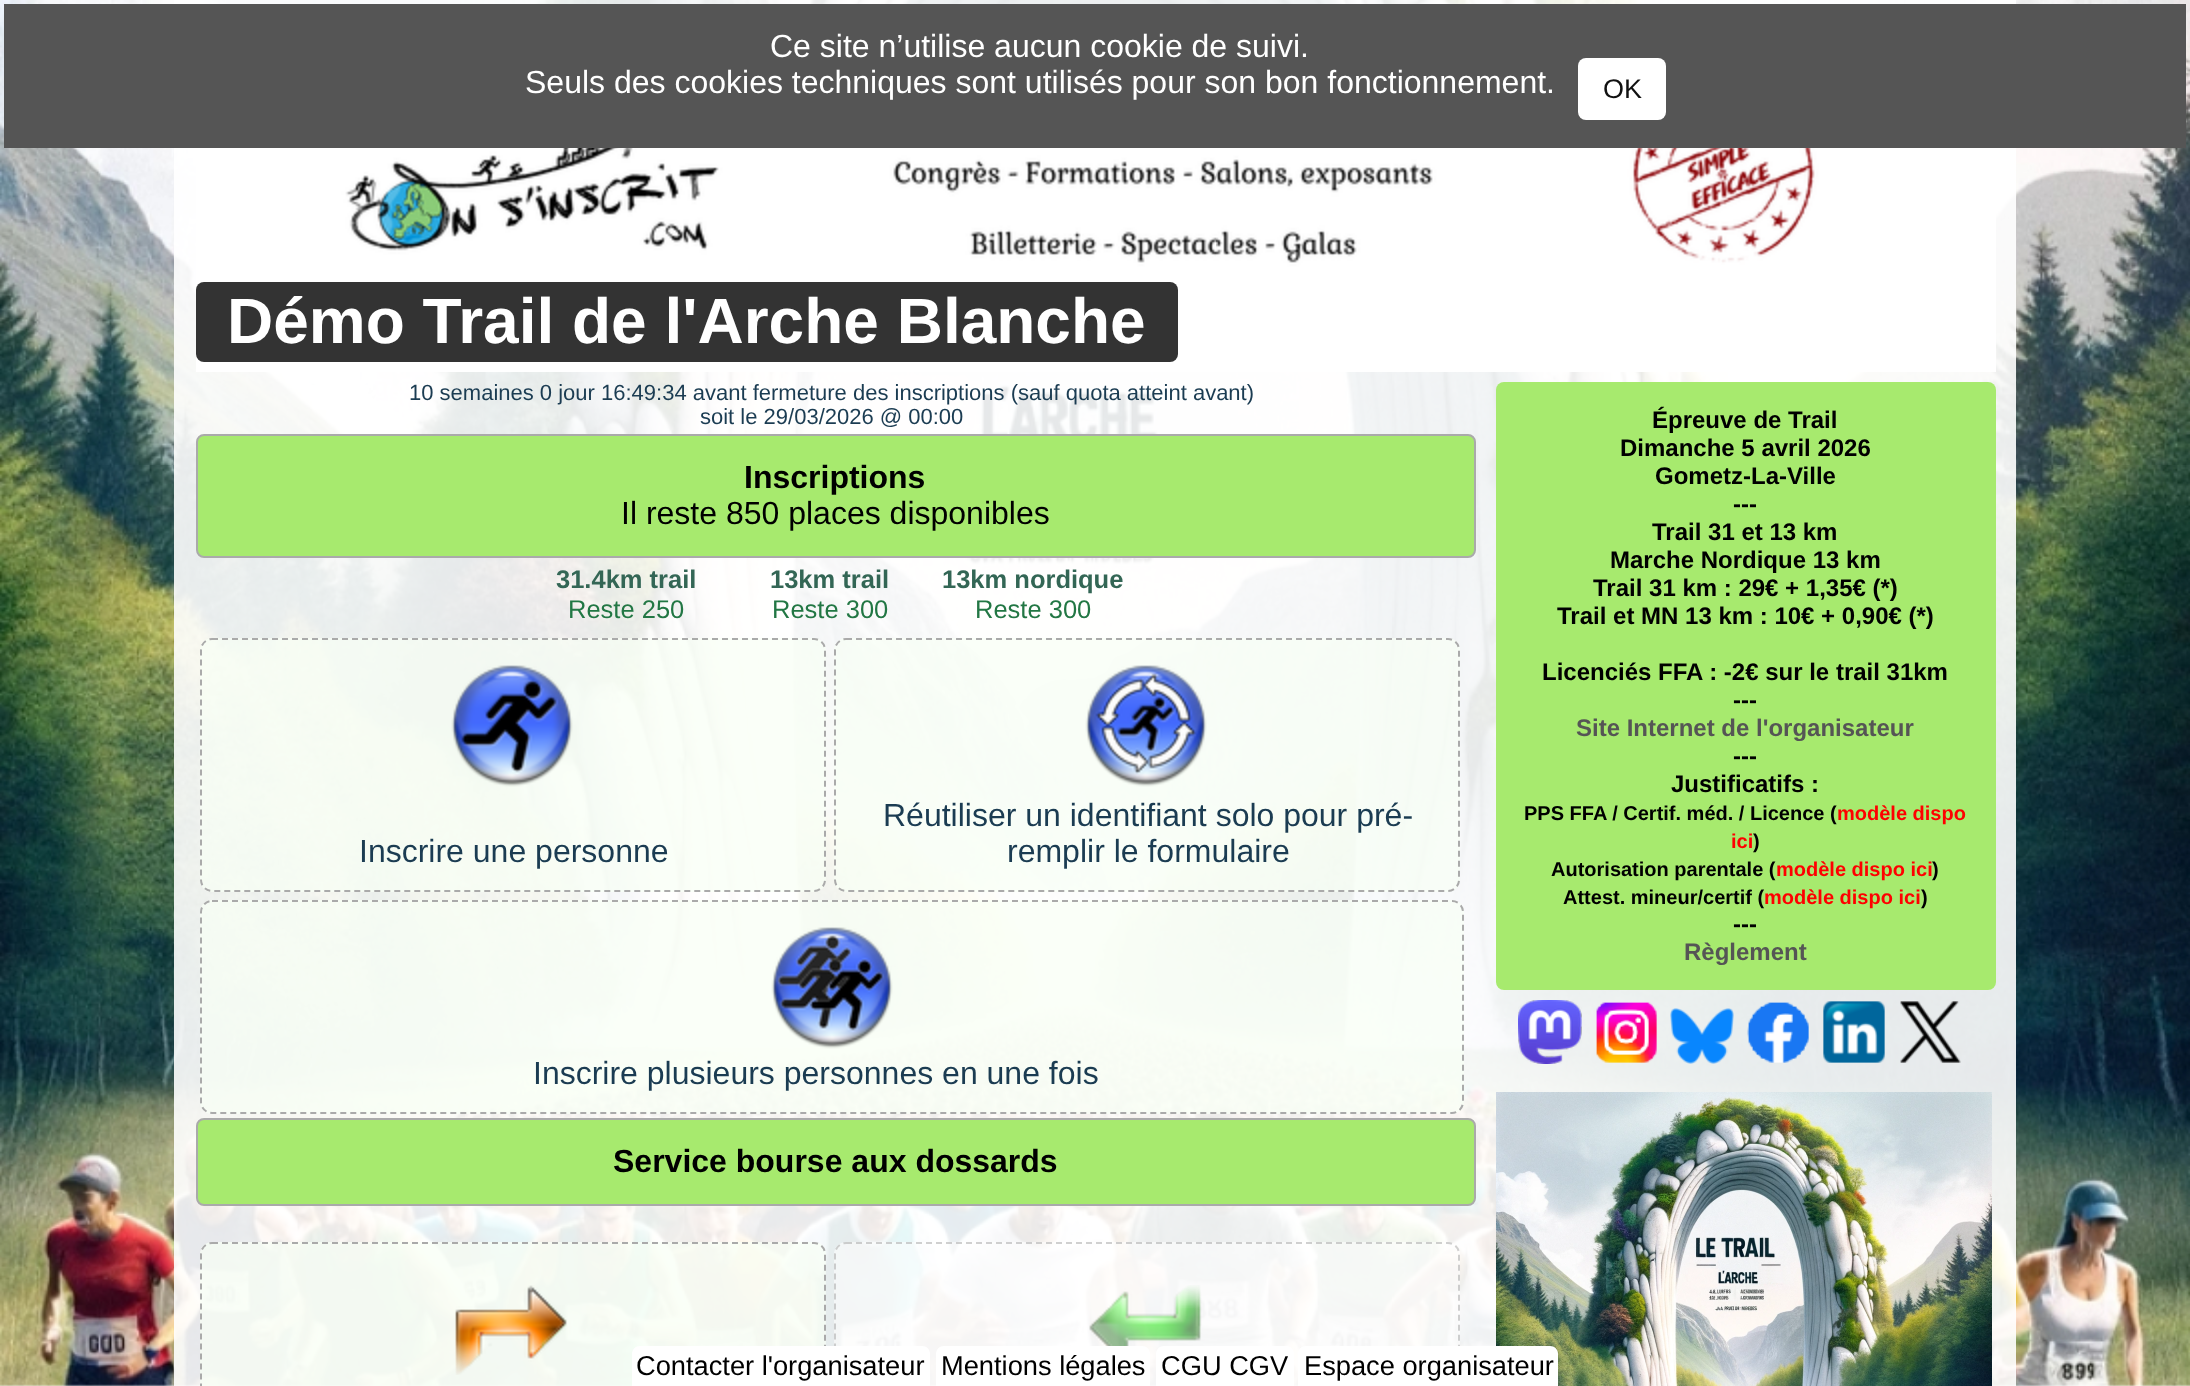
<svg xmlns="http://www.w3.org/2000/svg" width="2190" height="1386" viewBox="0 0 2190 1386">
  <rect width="100%" height="100%" fill="#fff"/>
  <image x="0" y="0" width="2190" height="1386" href="img/1.png"/>
  <path d="M174 0h1842v1386H174z" fill="#ffffffe6"/>
  <path d="M4 4h2182v144H4z" fill="#555"/>
  <rect x="1578" y="58" width="88" height="62" rx="8" fill="#fff"/>
  <image x="196" y="148" width="1800" height="224" href="img/2.png"/>
  <rect x="196" y="282" width="982" height="80" rx="8" fill="#333"/>
  <rect x="197" y="435" width="1278" height="122" rx="7" fill="#a7ea6e" stroke="#aaa" stroke-width="2"/>
  <rect x="200" y="638" width="626" height="254" rx="12" fill="#f8fff5b3"/>
  <path d="M212 639H814C820 639 825 644 825 650V880C825 886 820 891 814 891H212C206 891 201 886 201 880V650C201 644 206 639 212 639Z" fill="none" stroke="#aaa" stroke-width="2" stroke-dasharray="6 4"/>
  <image x="451" y="665" width="122" height="122" href="img/3.png"/>
  <rect x="834" y="638" width="626" height="254" rx="12" fill="#f8fff5b3"/>
  <path d="M846 639H1448C1454 639 1459 644 1459 650V880C1459 886 1454 891 1448 891H846C840 891 835 886 835 880V650C835 644 840 639 846 639Z" fill="none" stroke="#aaa" stroke-width="2" stroke-dasharray="6 4"/>
  <image x="1085" y="665" width="122" height="122" href="img/4.png"/>
  <rect x="200" y="900" width="1264" height="214" rx="12" fill="#f8fff5b3"/>
  <path d="M212 901H1452C1458 901 1463 906 1463 912V1102C1463 1108 1458 1113 1452 1113H212C206 1113 201 1108 201 1102V912C201 906 206 901 212 901Z" fill="none" stroke="#aaa" stroke-width="2" stroke-dasharray="6 4"/>
  <image x="771" y="927" width="122" height="122" href="img/5.png"/>
  <rect x="197" y="1119" width="1278" height="86" rx="7" fill="#a7ea6e" stroke="#aaa" stroke-width="2"/>
  <rect x="200" y="1242" width="626" height="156" rx="12" fill="#f8fff5b3"/>
  <path d="M212 1243H814C820 1243 825 1248 825 1254V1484C825 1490 820 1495 814 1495H212C206 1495 201 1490 201 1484V1254C201 1248 206 1243 212 1243Z" fill="none" stroke="#aaa" stroke-width="2" stroke-dasharray="6 4"/>
  <image x="455" y="1285" width="112" height="90" href="img/6.png"/>
  <rect x="834" y="1242" width="626" height="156" rx="12" fill="#ffffff8c"/>
  <path d="M846 1243H1448C1454 1243 1459 1248 1459 1254V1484C1459 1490 1454 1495 1448 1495H846C840 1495 835 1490 835 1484V1254C835 1248 840 1243 846 1243Z" fill="none" stroke="#aaaaaa8c" stroke-width="2" stroke-dasharray="6 4"/>
  <image x="1089" y="1285" width="113" height="61" href="img/7.png"/>
  <rect x="1496" y="382" width="500" height="608" rx="8" fill="#a7ea6e"/>
  <image x="1518" y="1000" width="64" height="64" href="img/8.png"/>
  <image x="1596" y="1002" width="61" height="61" href="img/9.png"/>
  <image x="1670" y="1008" width="64" height="56" href="img/10.png"/>
  <image x="1747" y="1002" width="62" height="61" href="img/11.png"/>
  <image x="1823" y="1001" width="62" height="62" href="img/12.png"/>
  <image x="1900" y="1001" width="61" height="62" href="img/13.png"/>
  <image x="1496" y="1092" width="496" height="294" href="img/14.png"/>
  <path d="M640 1346H922C926.5 1346 930 1349.5 930 1354V1386H632V1354C632 1349.5 635.5 1346 640 1346Z" fill="#fff"/>
  <path d="M944 1346H1142C1146.5 1346 1150 1349.5 1150 1354V1386H936V1354C936 1349.5 939.5 1346 944 1346Z" fill="#fff"/>
  <path d="M1164 1346H1286C1290.5 1346 1294 1349.5 1294 1354V1386H1156V1354C1156 1349.5 1159.5 1346 1164 1346Z" fill="#fff"/>
  <path d="M1306 1346H1550C1554.5 1346 1558 1349.5 1558 1354V1386H1298V1354C1298 1349.5 1301.5 1346 1306 1346Z" fill="#fff"/>
  <g font-family="Liberation Sans" font-size="32" fill="#fff">
    <text x="770" y="57">Ce site n’utilise aucun cookie de suivi.</text>
    <text x="525" y="93">Seuls des cookies techniques sont utilisés pour son bon fonctionnement.</text>
  </g>
  <text x="1603" y="98" font-family="Liberation Sans" font-size="27" fill="#111">OK</text>
  <text x="227" y="343" font-family="Liberation Sans" font-size="64" font-weight="bold" fill="#fff">Démo Trail de l'Arche Blanche</text>
  <g font-family="Liberation Sans" font-size="22" fill="#1b3c52">
    <text x="409" y="400">10 semaines 0 jour 16:49:34 avant fermeture des inscriptions (sauf quota atteint avant)</text>
    <text x="700" y="424">soit le 29/03/2026 @ 00:00</text>
  </g>
  <text x="744" y="488" font-family="Liberation Sans" font-size="32" font-weight="bold" fill="#000">Inscriptions</text>
  <text x="621" y="524" font-family="Liberation Sans" font-size="32" fill="#000">Il reste 850 places disponibles</text>
  <text x="556" y="588" font-family="Liberation Sans" font-size="25.5" font-weight="bold" fill="#365">31.4km trail</text>
  <text x="568" y="618" font-family="Liberation Sans" font-size="25.5" fill="#274">Reste 250</text>
  <text x="770" y="588" font-family="Liberation Sans" font-size="25.5" font-weight="bold" fill="#365">13km trail</text>
  <text x="772" y="618" font-family="Liberation Sans" font-size="25.5" fill="#274">Reste 300</text>
  <text x="942" y="588" font-family="Liberation Sans" font-size="25.5" font-weight="bold" fill="#365">13km nordique</text>
  <text x="975" y="618" font-family="Liberation Sans" font-size="25.5" fill="#274">Reste 300</text>
  <g font-family="Liberation Sans" font-size="32" fill="#1b3c52">
    <text x="359" y="862">Inscrire une personne</text>
    <text x="883" y="826">Réutiliser un identifiant solo pour pré-</text>
    <text x="1007" y="862">remplir le formulaire</text>
    <text x="533" y="1084">Inscrire plusieurs personnes en une fois</text>
  </g>
  <text x="613" y="1172" font-family="Liberation Sans" font-size="32" font-weight="bold" fill="#000">Service bourse aux dossards</text>
  <g font-family="Liberation Sans" font-size="24" font-weight="bold" fill="#000">
    <text x="1652" y="428">Épreuve de Trail</text>
    <text x="1620" y="456">Dimanche 5 avril 2026</text>
    <text x="1655" y="484">Gometz-La-Ville</text>
    <text x="1733" y="512">---</text>
    <text x="1652" y="540">Trail 31 et 13 km</text>
    <text x="1610" y="568">Marche Nordique 13 km</text>
    <text x="1593" y="596">Trail 31 km : 29€ + 1,35€ (*)</text>
    <text x="1557" y="624">Trail et MN 13 km : 10€ + 0,90€ (*)</text>
    <text x="1542" y="680">Licenciés FFA : -2€ sur le trail 31km</text>
    <text x="1733" y="708">---</text>
  </g>
  <text x="1576" y="736" font-family="Liberation Sans" font-size="24" font-weight="bold" fill="#555">Site Internet de l'organisateur</text>
  <g font-family="Liberation Sans" font-size="24" font-weight="bold" fill="#000">
    <text x="1733" y="764">---</text>
    <text x="1671" y="792">Justificatifs :</text>
  </g>
  <text x="1524" y="820" font-family="Liberation Sans" font-size="20" font-weight="bold" fill="#000">PPS FFA / Certif. méd. / Licence (</text>
  <g font-family="Liberation Sans" font-size="20" font-weight="bold" fill="#f00">
    <text x="1837" y="820">modèle dispo</text>
    <text x="1731" y="848">ici</text>
  </g>
  <g font-family="Liberation Sans" font-size="20" font-weight="bold" fill="#000">
    <text x="1753" y="848">)</text>
    <text x="1551" y="876">Autorisation parentale (</text>
  </g>
  <text x="1776" y="876" font-family="Liberation Sans" font-size="20" font-weight="bold" fill="#f00">modèle dispo ici</text>
  <g font-family="Liberation Sans" font-size="20" font-weight="bold" fill="#000">
    <text x="1932" y="876">)</text>
    <text x="1563" y="904">Attest. mineur/certif (</text>
  </g>
  <text x="1764" y="904" font-family="Liberation Sans" font-size="20" font-weight="bold" fill="#f00">modèle dispo ici</text>
  <text x="1921" y="904" font-family="Liberation Sans" font-size="20" font-weight="bold" fill="#000">)</text>
  <text x="1733" y="932" font-family="Liberation Sans" font-size="24" font-weight="bold" fill="#000">---</text>
  <text x="1684" y="960" font-family="Liberation Sans" font-size="24" font-weight="bold" fill="#555">Règlement</text>
  <g font-family="Liberation Sans" font-size="27.25" fill="#000">
    <text x="636" y="1375">Contacter l'organisateur</text>
    <text x="941" y="1375">Mentions légales</text>
    <text x="1161" y="1375">CGU CGV</text>
    <text x="1304" y="1375">Espace organisateur</text>
  </g>
</svg>
